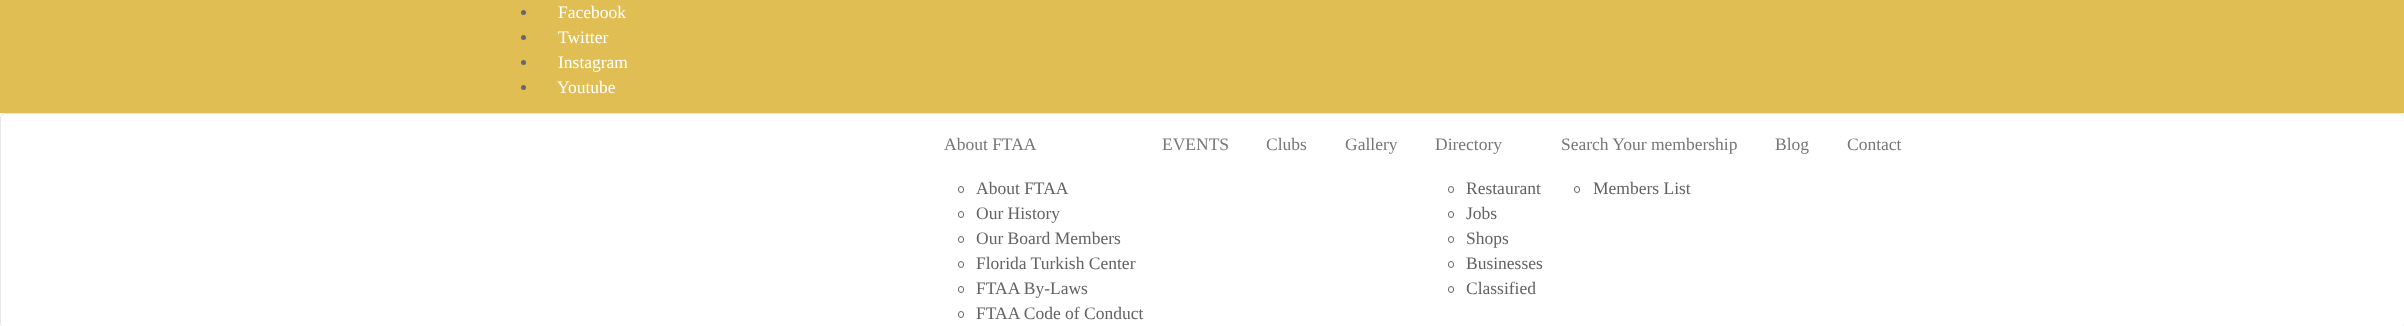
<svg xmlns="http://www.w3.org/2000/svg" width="2404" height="326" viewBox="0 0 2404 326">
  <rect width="100%" height="100%" fill="#fff"/>
  <path d="M0 0h2404v113H0z" fill="#e0be53"/>
  <circle cx="523.5" cy="12.5" r="2.5" fill="#64686d"/>
  <circle cx="523.5" cy="37.5" r="2.5" fill="#64686d"/>
  <circle cx="523.5" cy="62.5" r="2.5" fill="#64686d"/>
  <circle cx="523.5" cy="87.5" r="2.5" fill="#64686d"/>
  <rect x="0.5" y="113.5" width="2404" height="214" rx="4.5" fill="none" stroke="#e7e7e7"/>
  <rect x="958.5" y="186.5" width="5" height="6" rx="2.5" fill="none" stroke="#64686d"/>
  <rect x="958.5" y="211.5" width="5" height="6" rx="2.5" fill="none" stroke="#64686d"/>
  <rect x="958.5" y="236.5" width="5" height="6" rx="2.5" fill="none" stroke="#64686d"/>
  <rect x="958.5" y="261.5" width="5" height="6" rx="2.5" fill="none" stroke="#64686d"/>
  <rect x="958.5" y="286.5" width="5" height="6" rx="2.5" fill="none" stroke="#64686d"/>
  <rect x="958.5" y="311.5" width="5" height="6" rx="2.5" fill="none" stroke="#64686d"/>
  <rect x="1448.5" y="186.5" width="5" height="6" rx="2.5" fill="none" stroke="#64686d"/>
  <rect x="1448.5" y="211.5" width="5" height="6" rx="2.5" fill="none" stroke="#64686d"/>
  <rect x="1448.5" y="236.5" width="5" height="6" rx="2.5" fill="none" stroke="#64686d"/>
  <rect x="1448.5" y="261.5" width="5" height="6" rx="2.5" fill="none" stroke="#64686d"/>
  <rect x="1448.5" y="286.5" width="5" height="6" rx="2.5" fill="none" stroke="#64686d"/>
  <rect x="1574.5" y="186.5" width="5" height="6" rx="2.5" fill="none" stroke="#64686d"/>
  <g font-family="Liberation Serif" font-size="17.5" fill="#fff">
    <text x="558" y="18">Facebook</text>
    <text x="558" y="43">Twitter</text>
    <text x="558" y="68">Instagram</text>
    <text x="557" y="93">Youtube</text>
  </g>
  <text x="944" y="150" font-family="Liberation Serif" font-size="17.5" fill="#777">About FTAA</text>
  <g font-family="Liberation Serif" font-size="17.5" fill="#636363">
    <text x="976" y="194">About FTAA</text>
    <text x="976" y="219">Our History</text>
    <text x="976" y="244">Our Board Members</text>
    <text x="976" y="269">Florida Turkish Center</text>
    <text x="976" y="294">FTAA By-Laws</text>
    <text x="976" y="319">FTAA Code of Conduct</text>
  </g>
  <g font-family="Liberation Serif" font-size="17.5" fill="#777">
    <text x="1162" y="150">EVENTS</text>
    <text x="1266" y="150">Clubs</text>
    <text x="1345" y="150">Gallery</text>
    <text x="1435" y="150">Directory</text>
  </g>
  <g font-family="Liberation Serif" font-size="17.5" fill="#636363">
    <text x="1466" y="194">Restaurant</text>
    <text x="1466" y="219">Jobs</text>
    <text x="1466" y="244">Shops</text>
    <text x="1466" y="269">Businesses</text>
    <text x="1466" y="294">Classified</text>
  </g>
  <text x="1561" y="150" font-family="Liberation Serif" font-size="17.5" fill="#777">Search Your membership</text>
  <text x="1593" y="194" font-family="Liberation Serif" font-size="17.5" fill="#636363">Members List</text>
  <g font-family="Liberation Serif" font-size="17.5" fill="#777">
    <text x="1775" y="150">Blog</text>
    <text x="1847" y="150">Contact</text>
  </g>
</svg>
